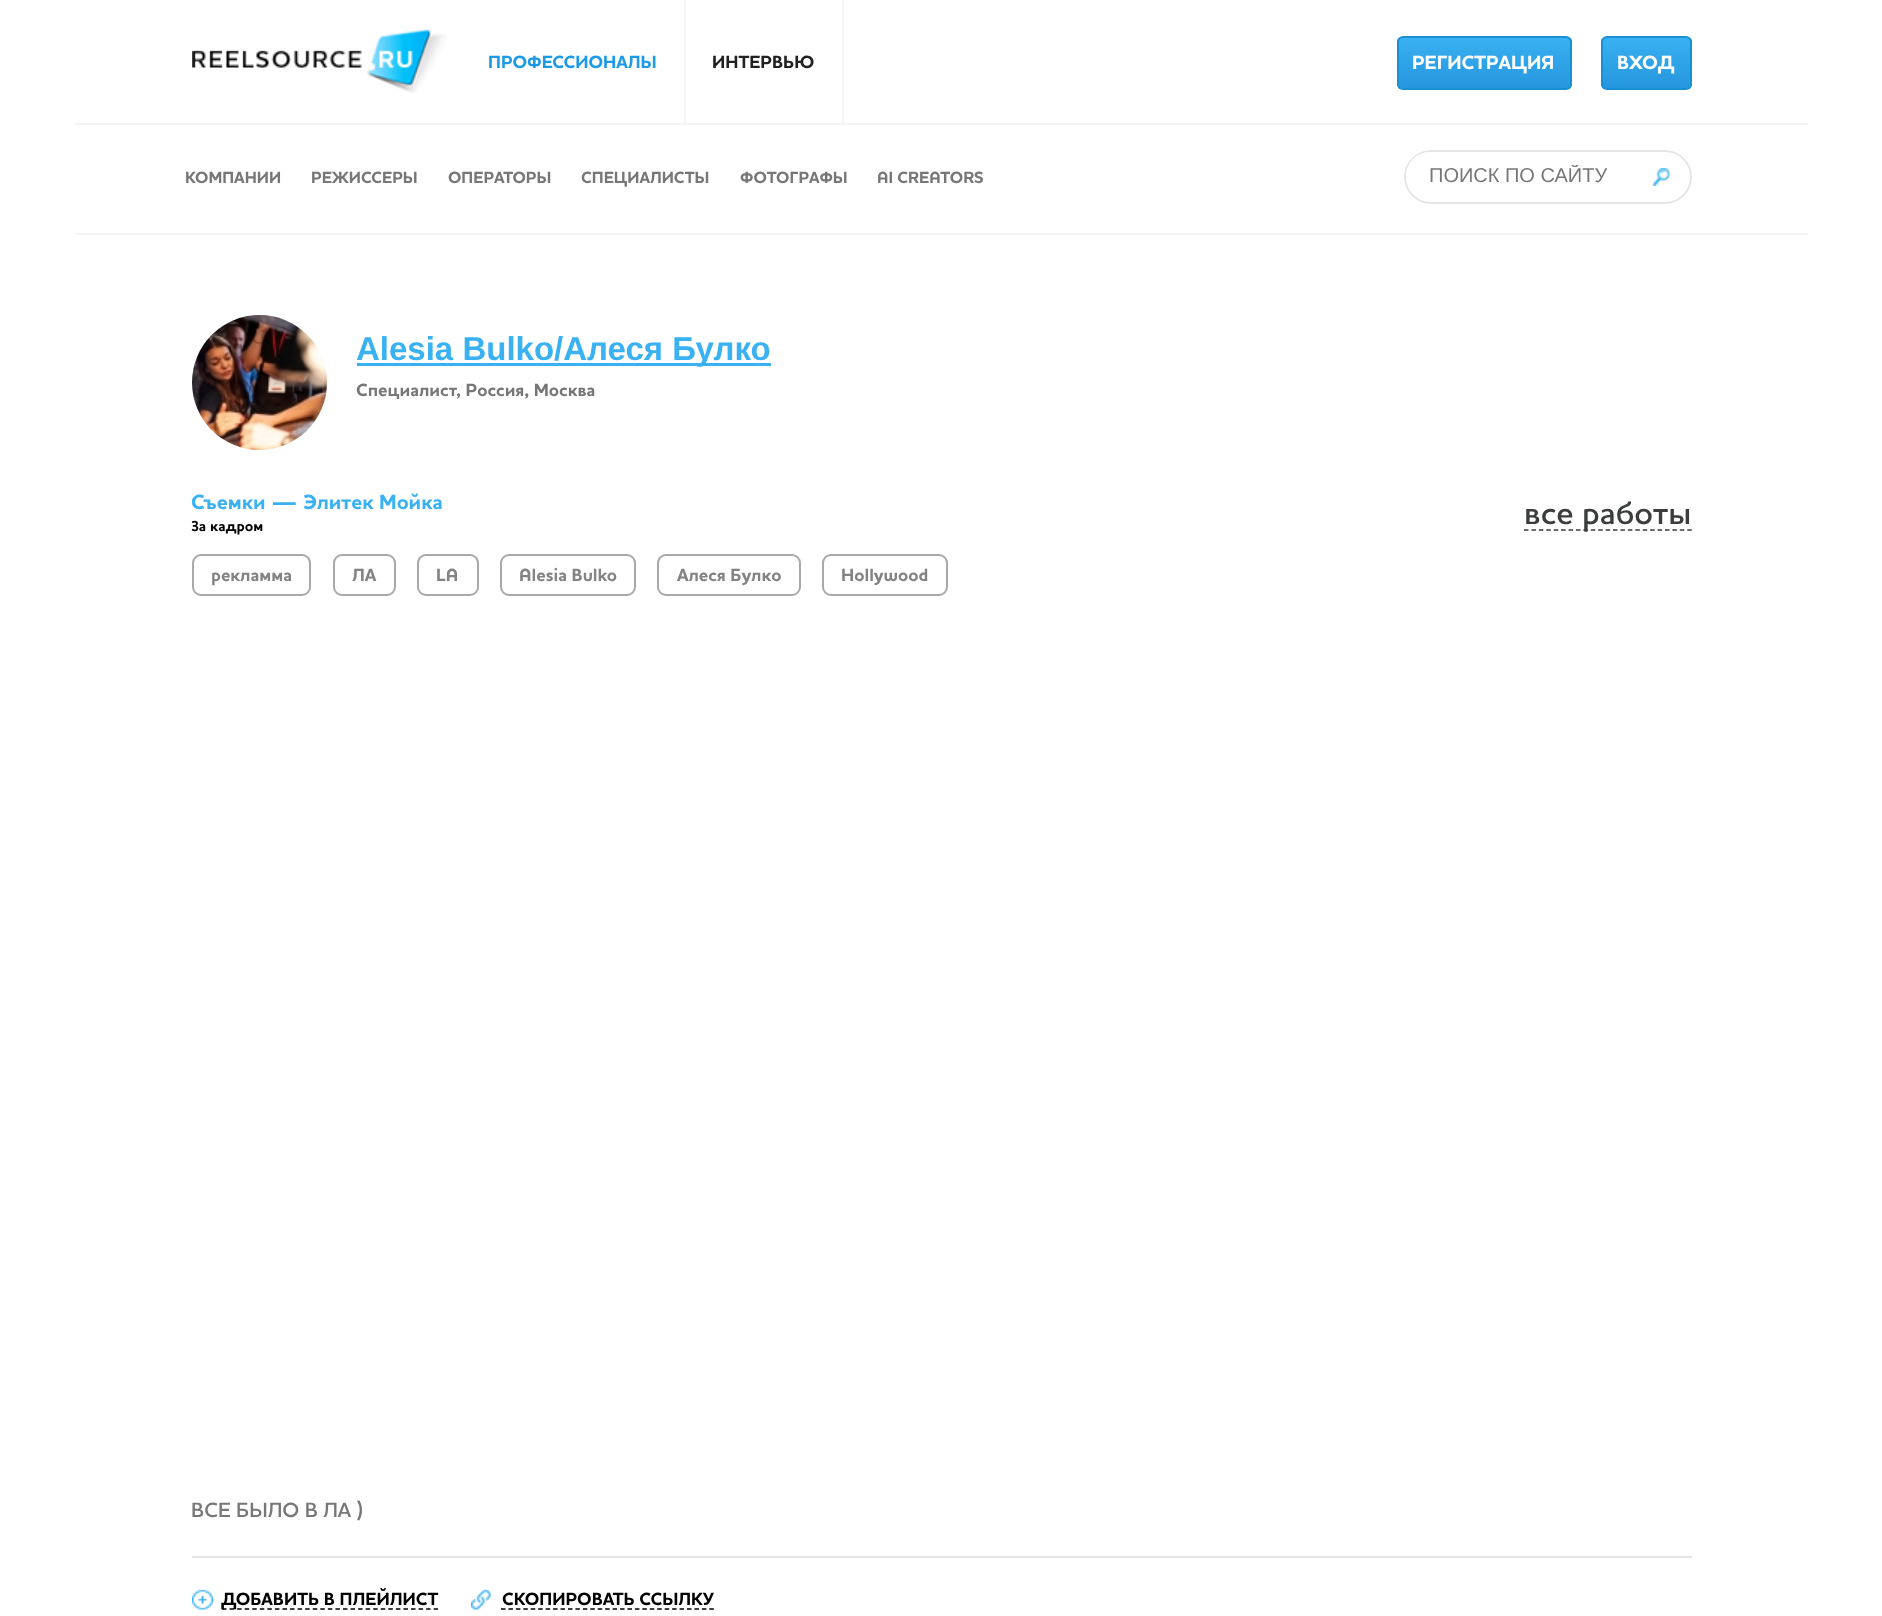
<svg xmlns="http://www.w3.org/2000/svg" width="1882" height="1616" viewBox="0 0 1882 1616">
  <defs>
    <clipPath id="clip1"><rect x="1397" y="36" width="175" height="54" rx="6"/></clipPath>
    <linearGradient id="g1" gradientUnits="userSpaceOnUse" x1="1484" y1="37" x2="1484" y2="89"><stop offset="0" stop-color="#39b1f2"/><stop offset="1" stop-color="#2596de"/></linearGradient>
    <clipPath id="clip2"><rect x="1601" y="36" width="91" height="54" rx="6"/></clipPath>
    <linearGradient id="g2" gradientUnits="userSpaceOnUse" x1="1646" y1="37" x2="1646" y2="89"><stop offset="0" stop-color="#39b1f2"/><stop offset="1" stop-color="#2596de"/></linearGradient>
    <clipPath id="clip3"><path d="M1409 165h240v23H1409z"/></clipPath>
  </defs>
  <rect width="100%" height="100%" fill="#fff"/>
  <path d="M75 123h1733v2H75z" fill="#f4f4f4"/>
  <image x="192" y="29" width="255" height="64" href="img/1.png"/>
  <path d="M684 0h2v123H684z" fill="#f6f6f6"/>
  <path d="M842 0h2v123H842z" fill="#f6f6f6"/>
  <g clip-path="url(#clip1)">
    <path d="M1397 38h175v51H1397z" fill="url(#g1)"/>
  </g>
  <rect x="1398" y="37" width="173" height="52" rx="5" fill="none" stroke="#1b8fd4" stroke-width="2"/>
  <g clip-path="url(#clip2)">
    <path d="M1601 38h91v51H1601z" fill="url(#g2)"/>
  </g>
  <rect x="1602" y="37" width="89" height="52" rx="5" fill="none" stroke="#1b8fd4" stroke-width="2"/>
  <path d="M75 233h1733v2H75z" fill="#f4f4f4"/>
  <rect x="1405" y="151" width="286" height="52" rx="26" fill="none" stroke="#e6e6e6" stroke-width="2"/>
  <rect x="1406" y="152" width="246" height="48" rx="24" fill="#fff"/>
  <image x="1653" y="168" width="17" height="18" href="img/2.png"/>
  <image x="192" y="315" width="135" height="135" href="img/3.png"/>
  <path d="M357 363h414v3H357z" fill="#39b1f2"/>
  <path d="M1524 530H1692" fill="none" stroke="#3a3c3d" stroke-width="1.5" stroke-dasharray="4.5 2.92"/>
  <rect x="193" y="555" width="117" height="40" rx="8" fill="none" stroke="#a9a9a9" stroke-width="2"/>
  <rect x="334" y="555" width="61" height="40" rx="8" fill="none" stroke="#a9a9a9" stroke-width="2"/>
  <rect x="418" y="555" width="60" height="40" rx="8" fill="none" stroke="#a9a9a9" stroke-width="2"/>
  <rect x="501" y="555" width="134" height="40" rx="8" fill="none" stroke="#a9a9a9" stroke-width="2"/>
  <rect x="658" y="555" width="142" height="40" rx="8" fill="none" stroke="#a9a9a9" stroke-width="2"/>
  <rect x="823" y="555" width="124" height="40" rx="8" fill="none" stroke="#a9a9a9" stroke-width="2"/>
  <path d="M192 1556h1500v2H192z" fill="#e5e5e5"/>
  <image x="192" y="1589" width="21" height="21" href="img/4.png"/>
  <path d="M222 1609H438" fill="none" stroke="#000" stroke-width="1.5" stroke-dasharray="4.5 3.06"/>
  <image x="471" y="1589" width="20" height="21" href="img/5.png"/>
  <path d="M501 1609H714" fill="none" stroke="#000" stroke-width="1.5" stroke-dasharray="4.5 2.94"/>
  <text x="488" y="68" font-family="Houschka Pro" font-size="18" font-weight="bold" fill="#1c9ae8">ПРОФЕССИОНАЛЫ</text>
  <text x="712" y="68" font-family="Houschka Pro" font-size="18" font-weight="bold" fill="#212121">ИНТЕРВЬЮ</text>
  <g font-family="Houschka Pro" font-size="19.5" font-weight="bold" fill="#fff">
    <text x="1412" y="69">РЕГИСТРАЦИЯ</text>
    <text x="1617" y="69">ВХОД</text>
  </g>
  <g font-family="Houschka Pro" font-size="16.5" font-weight="bold" fill="#777">
    <text x="185" y="183">КОМПАНИИ</text>
    <text x="311" y="183">РЕЖИССЕРЫ</text>
    <text x="448" y="183">ОПЕРАТОРЫ</text>
    <text x="581" y="183">СПЕЦИАЛИСТЫ</text>
    <text x="740" y="183">ФОТОГРАФЫ</text>
    <text x="877" y="183">AI CREATORS</text>
  </g>
  <g clip-path="url(#clip3)">
    <text x="1429" y="182" font-family="Liberation Sans" font-size="20" fill="#777">ПОИСК ПО САЙТУ</text>
  </g>
  <text x="356" y="360" font-family="Liberation Sans" font-size="33" font-weight="bold" fill="#39b1f2">Alesia Bulko/Алеся Булко</text>
  <text x="356" y="396" font-family="Houschka Pro" font-size="18" font-weight="bold" fill="#777">Специалист, Россия, Москва</text>
  <text x="191" y="509" font-family="Houschka Pro" font-size="21" font-weight="bold" fill="#39b1f2">Съемки — Элитек Мойка</text>
  <text x="1524" y="524" font-family="Houschka Pro" font-size="33" font-weight="600" fill="#3a3c3d">все работы</text>
  <text x="191" y="531" font-family="Houschka Pro" font-size="15" font-weight="bold" fill="#000">За кадром</text>
  <g font-family="Houschka Pro" font-size="18" font-weight="bold" fill="#838383">
    <text x="211" y="581">рекламма</text>
    <text x="352" y="581">ЛА</text>
    <text x="436" y="581">LA</text>
    <text x="519" y="581">Alesia Bulko</text>
    <text x="677" y="581">Алеся Булко</text>
    <text x="841" y="581">Hollywood</text>
  </g>
  <text x="191" y="1517" font-family="Houschka Pro" font-size="21" font-weight="600" fill="#777">ВСЕ БЫЛО В ЛА )</text>
  <g font-family="Houschka Pro" font-size="18" font-weight="bold" fill="#000">
    <text x="221" y="1605">ДОБАВИТЬ В ПЛЕЙЛИСТ</text>
    <text x="502" y="1605">СКОПИРОВАТЬ ССЫЛКУ</text>
  </g>
</svg>
